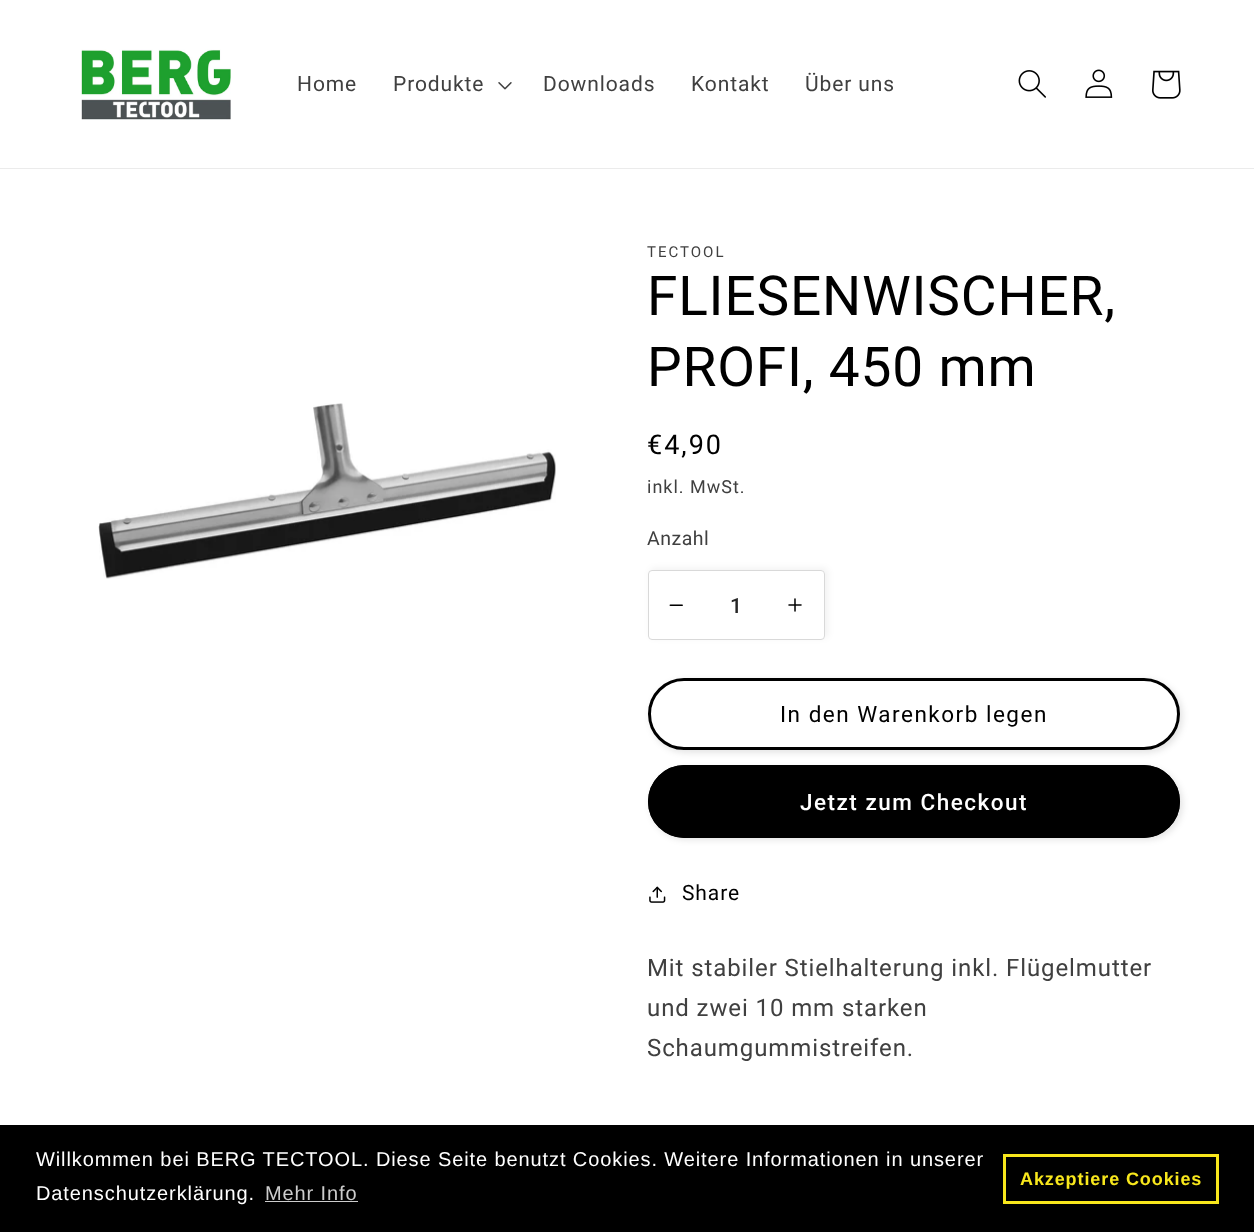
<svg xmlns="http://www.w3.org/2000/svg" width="1254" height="1232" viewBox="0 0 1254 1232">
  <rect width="100%" height="100%" fill="#fff"/>
  <path d="M0 168h1254v1H0z" fill="#ebebeb"/>
  <image x="81" y="49" width="150" height="71" href="img/1.png"/>
  <image x="498" y="82" width="14" height="8" href="img/2.png"/>
  <image x="1018" y="70" width="28" height="28" href="img/3.png"/>
  <image x="1085" y="69" width="28" height="29" href="img/4.png"/>
  <image x="1152" y="70" width="29" height="29" href="img/5.png"/>
  <image x="98" y="403" width="458" height="176" href="img/6.png"/>
  <rect x="650" y="568" width="178" height="70" rx="4" fill="#0000000d" filter="blur(3px)"/>
  <rect x="648" y="570" width="177" height="70" rx="4" fill="#fff"/>
  <image x="669" y="604" width="14" height="2" href="img/7.png"/>
  <image x="788" y="598" width="14" height="14" href="img/8.png"/>
  <rect x="648.5" y="570.5" width="176" height="69" rx="3.5" fill="none" stroke="#d9d9d9"/>
  <rect x="650" y="680" width="533" height="73" rx="36.5" fill="#0000001a" filter="blur(3px)"/>
  <rect x="648" y="678" width="532" height="72" rx="36" fill="#fff"/>
  <rect x="649.5" y="679.5" width="529" height="69" rx="34.5" fill="none" stroke="#fff" stroke-width="3"/>
  <rect x="649.5" y="679.5" width="529" height="69" rx="34.5" fill="none" stroke="#000" stroke-width="3"/>
  <rect x="650" y="768" width="533" height="72" rx="36" fill="#0000001a" filter="blur(3px)"/>
  <rect x="648" y="765" width="532" height="73" rx="36.5" fill="#000"/>
  <rect x="649.5" y="766.5" width="529" height="70" rx="35" fill="none" stroke="#000" stroke-width="3"/>
  <image x="649" y="886" width="17" height="17" href="img/9.png"/>
  <path d="M0 1125h1254v107H0z" fill="#000"/>
  <path d="M265 1201h93v1H265z" fill="#ccc"/>
  <path d="M1004.5 1155.5h213v47H1004.5z" fill="none" stroke="#f8e71c" stroke-width="3"/>
  <g font-family="Roboto" font-size="21" letter-spacing="0.9" fill="#404040">
    <text x="297" y="91">Home</text>
    <text x="393" y="91">Produkte</text>
    <text x="543" y="91">Downloads</text>
    <text x="691" y="91">Kontakt</text>
    <text x="805" y="91">Über uns</text>
  </g>
  <text x="647" y="257" font-family="Roboto" font-size="15" letter-spacing="2" fill="#404040">TECTOOL</text>
  <g font-family="Roboto" font-size="55" letter-spacing="0.8" fill="#000">
    <text x="647" y="315">FLIESENWISCHER,</text>
    <text x="647" y="386">PROFI, 450 mm</text>
  </g>
  <text x="647" y="454" font-family="Roboto" font-size="27" letter-spacing="2" fill="#000">€4,90</text>
  <text x="647" y="493" font-family="Roboto" font-size="18" letter-spacing="1" fill="#404040">inkl. MwSt.</text>
  <text x="647" y="545" font-family="Roboto" font-size="19.5" letter-spacing="0.5" fill="#404040">Anzahl</text>
  <text x="730" y="613" font-family="Roboto" font-size="21" font-weight="500" fill="#262626">1</text>
  <text x="780" y="722" font-family="Roboto" font-size="22.5" letter-spacing="1.5" fill="#000">In den Warenkorb legen</text>
  <text x="800" y="810" font-family="Roboto" font-size="22.5" font-weight="500" letter-spacing="1.5" fill="#fff">Jetzt zum Checkout</text>
  <text x="682" y="900" font-family="Roboto" font-size="21" letter-spacing="0.9" fill="#000">Share</text>
  <g font-family="Roboto" font-size="24" letter-spacing="0.9" fill="#404040">
    <text x="647" y="976">Mit stabiler Stielhalterung inkl. Flügelmutter</text>
    <text x="647" y="1016">und zwei 10 mm starken</text>
    <text x="647" y="1056">Schaumgummistreifen.</text>
  </g>
  <g font-family="Liberation Sans" font-size="20" letter-spacing="0.9" fill="#fff">
    <text x="36" y="1166">Willkommen bei BERG TECTOOL. Diese Seite benutzt Cookies. Weitere Informationen in unserer</text>
    <text x="36" y="1200">Datenschutzerklärung.</text>
  </g>
  <text x="265" y="1200" font-family="Liberation Sans" font-size="20" letter-spacing="0.9" fill="#ccc">Mehr Info</text>
  <text x="1020" y="1185" font-family="Liberation Sans" font-size="18" font-weight="bold" letter-spacing="0.9" fill="#f8e71c">Akzeptiere Cookies</text>
</svg>
